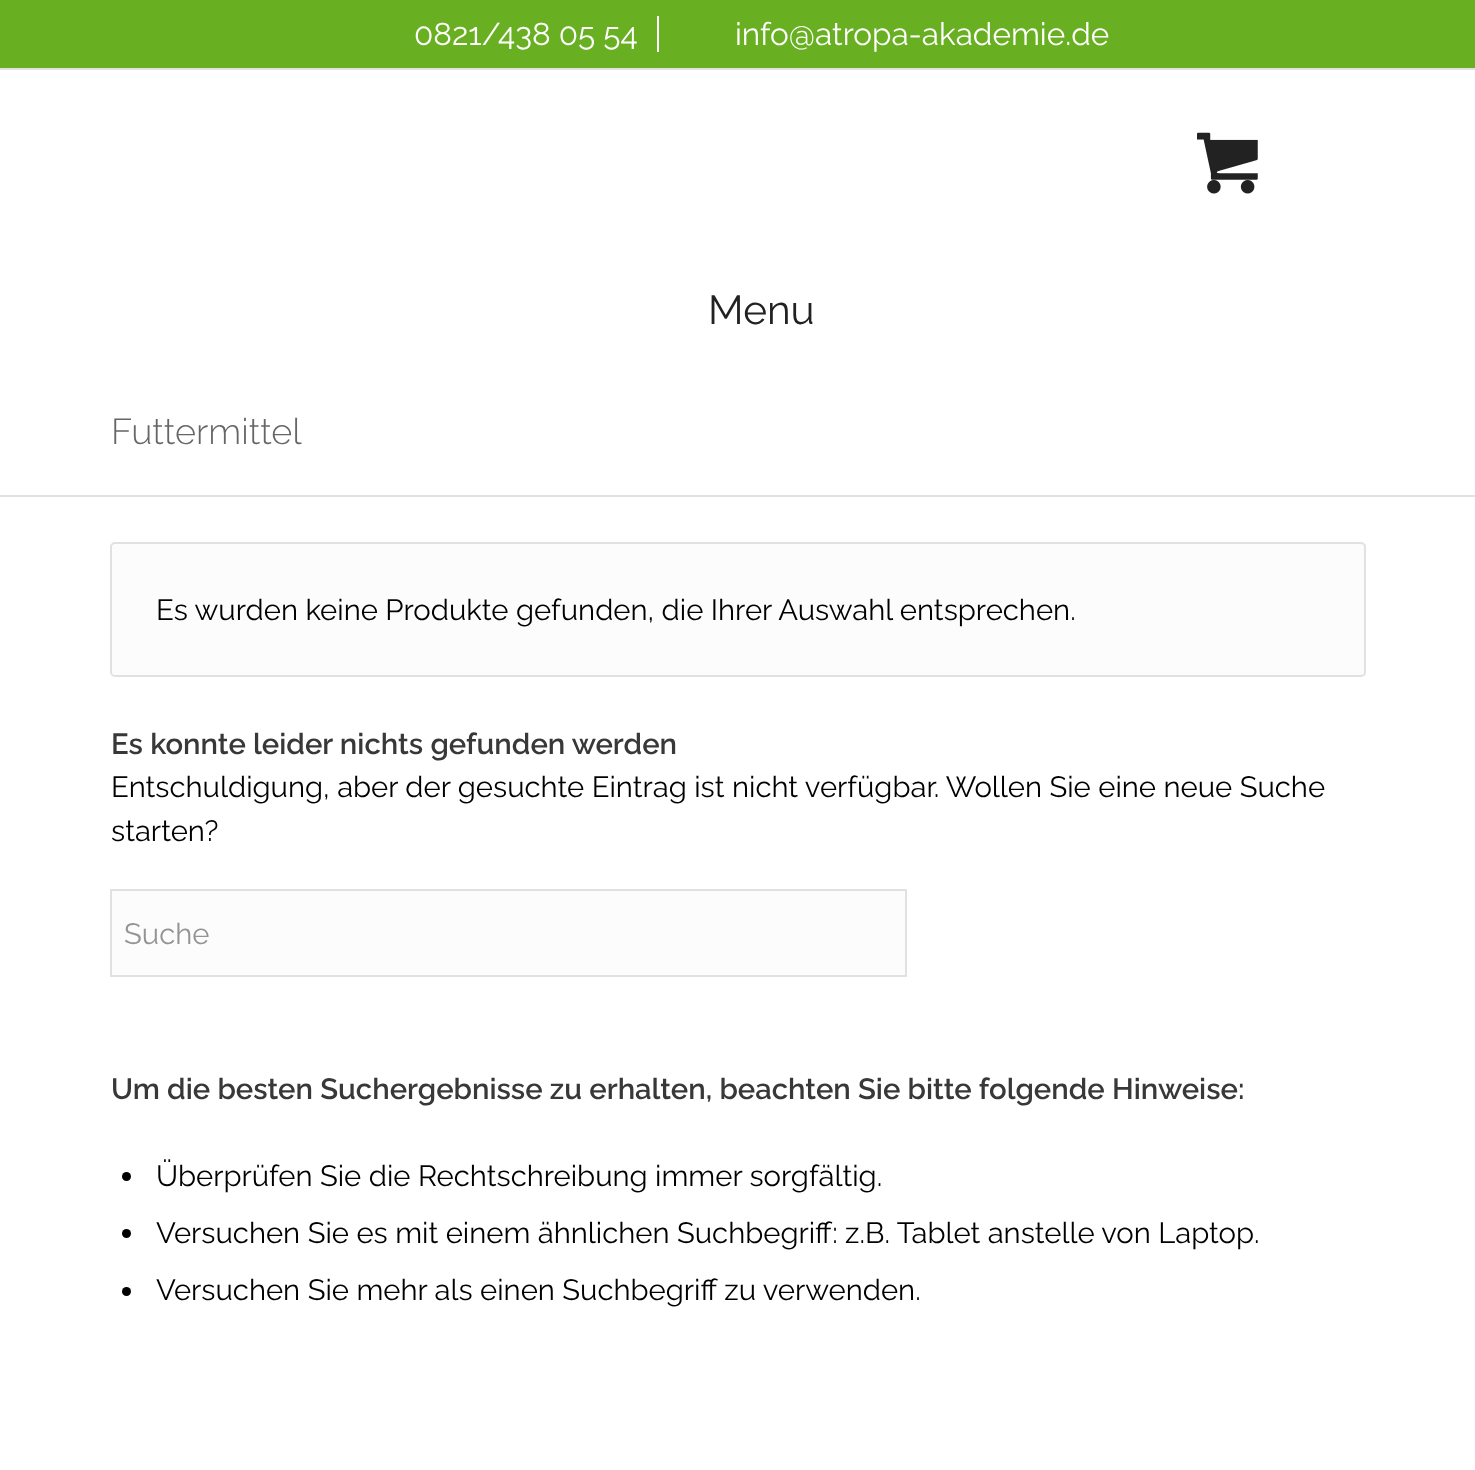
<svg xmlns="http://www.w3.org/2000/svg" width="1475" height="1470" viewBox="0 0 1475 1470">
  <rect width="100%" height="100%" fill="#fff"/>
  <path d="M0 0h1475v68H0z" fill="#68af21"/>
  <path d="M0 68h1475v2H0z" fill="#e1e1e1"/>
  <path d="M657 16h2v36H657z" fill="#fff"/>
  <image x="1197" y="132" width="61" height="62" href="img/1.png"/>
  <path d="M0 495h1475v2H0z" fill="#e1e1e1"/>
  <rect x="111" y="543" width="1254" height="133" rx="4" fill="#fcfcfc" stroke="#e1e1e1" stroke-width="2"/>
  <path d="M111 890h795v86H111z" fill="#fcfcfc" stroke="#e1e1e1" stroke-width="2"/>
  <circle cx="126.5" cy="1176.5" r="4.5" fill="#000"/>
  <circle cx="126.5" cy="1233.5" r="4.5" fill="#000"/>
  <circle cx="126.5" cy="1291.5" r="4.5" fill="#000"/>
  <g font-family="Raleway" font-size="31.5" fill="#fff">
    <text x="414" y="45">0821/438 05 54</text>
    <text x="735" y="45">info@atropa-akademie.de</text>
  </g>
  <text x="708" y="324" font-family="Raleway" font-size="40.5" fill="#222">Menu</text>
  <text x="111" y="444" font-family="Raleway" font-size="36" font-weight="300" fill="#666">Futtermittel</text>
  <text x="156" y="620" font-family="Raleway" font-size="29.25" fill="#000">Es wurden keine Produkte gefunden, die Ihrer Auswahl entsprechen.</text>
  <text x="111" y="754" font-family="Raleway" font-size="29.25" font-weight="600" fill="#383838">Es konnte leider nichts gefunden werden</text>
  <g font-family="Raleway" font-size="29.25" fill="#000">
    <text x="111" y="797">Entschuldigung, aber der gesuchte Eintrag ist nicht verfügbar. Wollen Sie eine neue Suche</text>
    <text x="111" y="841">starten?</text>
  </g>
  <text x="124" y="944" font-family="Raleway" font-size="29.25" fill="#949494">Suche</text>
  <text x="111" y="1099" font-family="Raleway" font-size="29.25" font-weight="600" fill="#383838">Um die besten Suchergebnisse zu erhalten, beachten Sie bitte folgende Hinweise:</text>
  <g font-family="Raleway" font-size="29.25" fill="#000">
    <text x="156" y="1186">Überprüfen Sie die Rechtschreibung immer sorgfältig.</text>
    <text x="156" y="1243">Versuchen Sie es mit einem ähnlichen Suchbegriff: z.B. Tablet anstelle von Laptop.</text>
    <text x="156" y="1300">Versuchen Sie mehr als einen Suchbegriff zu verwenden.</text>
  </g>
</svg>
